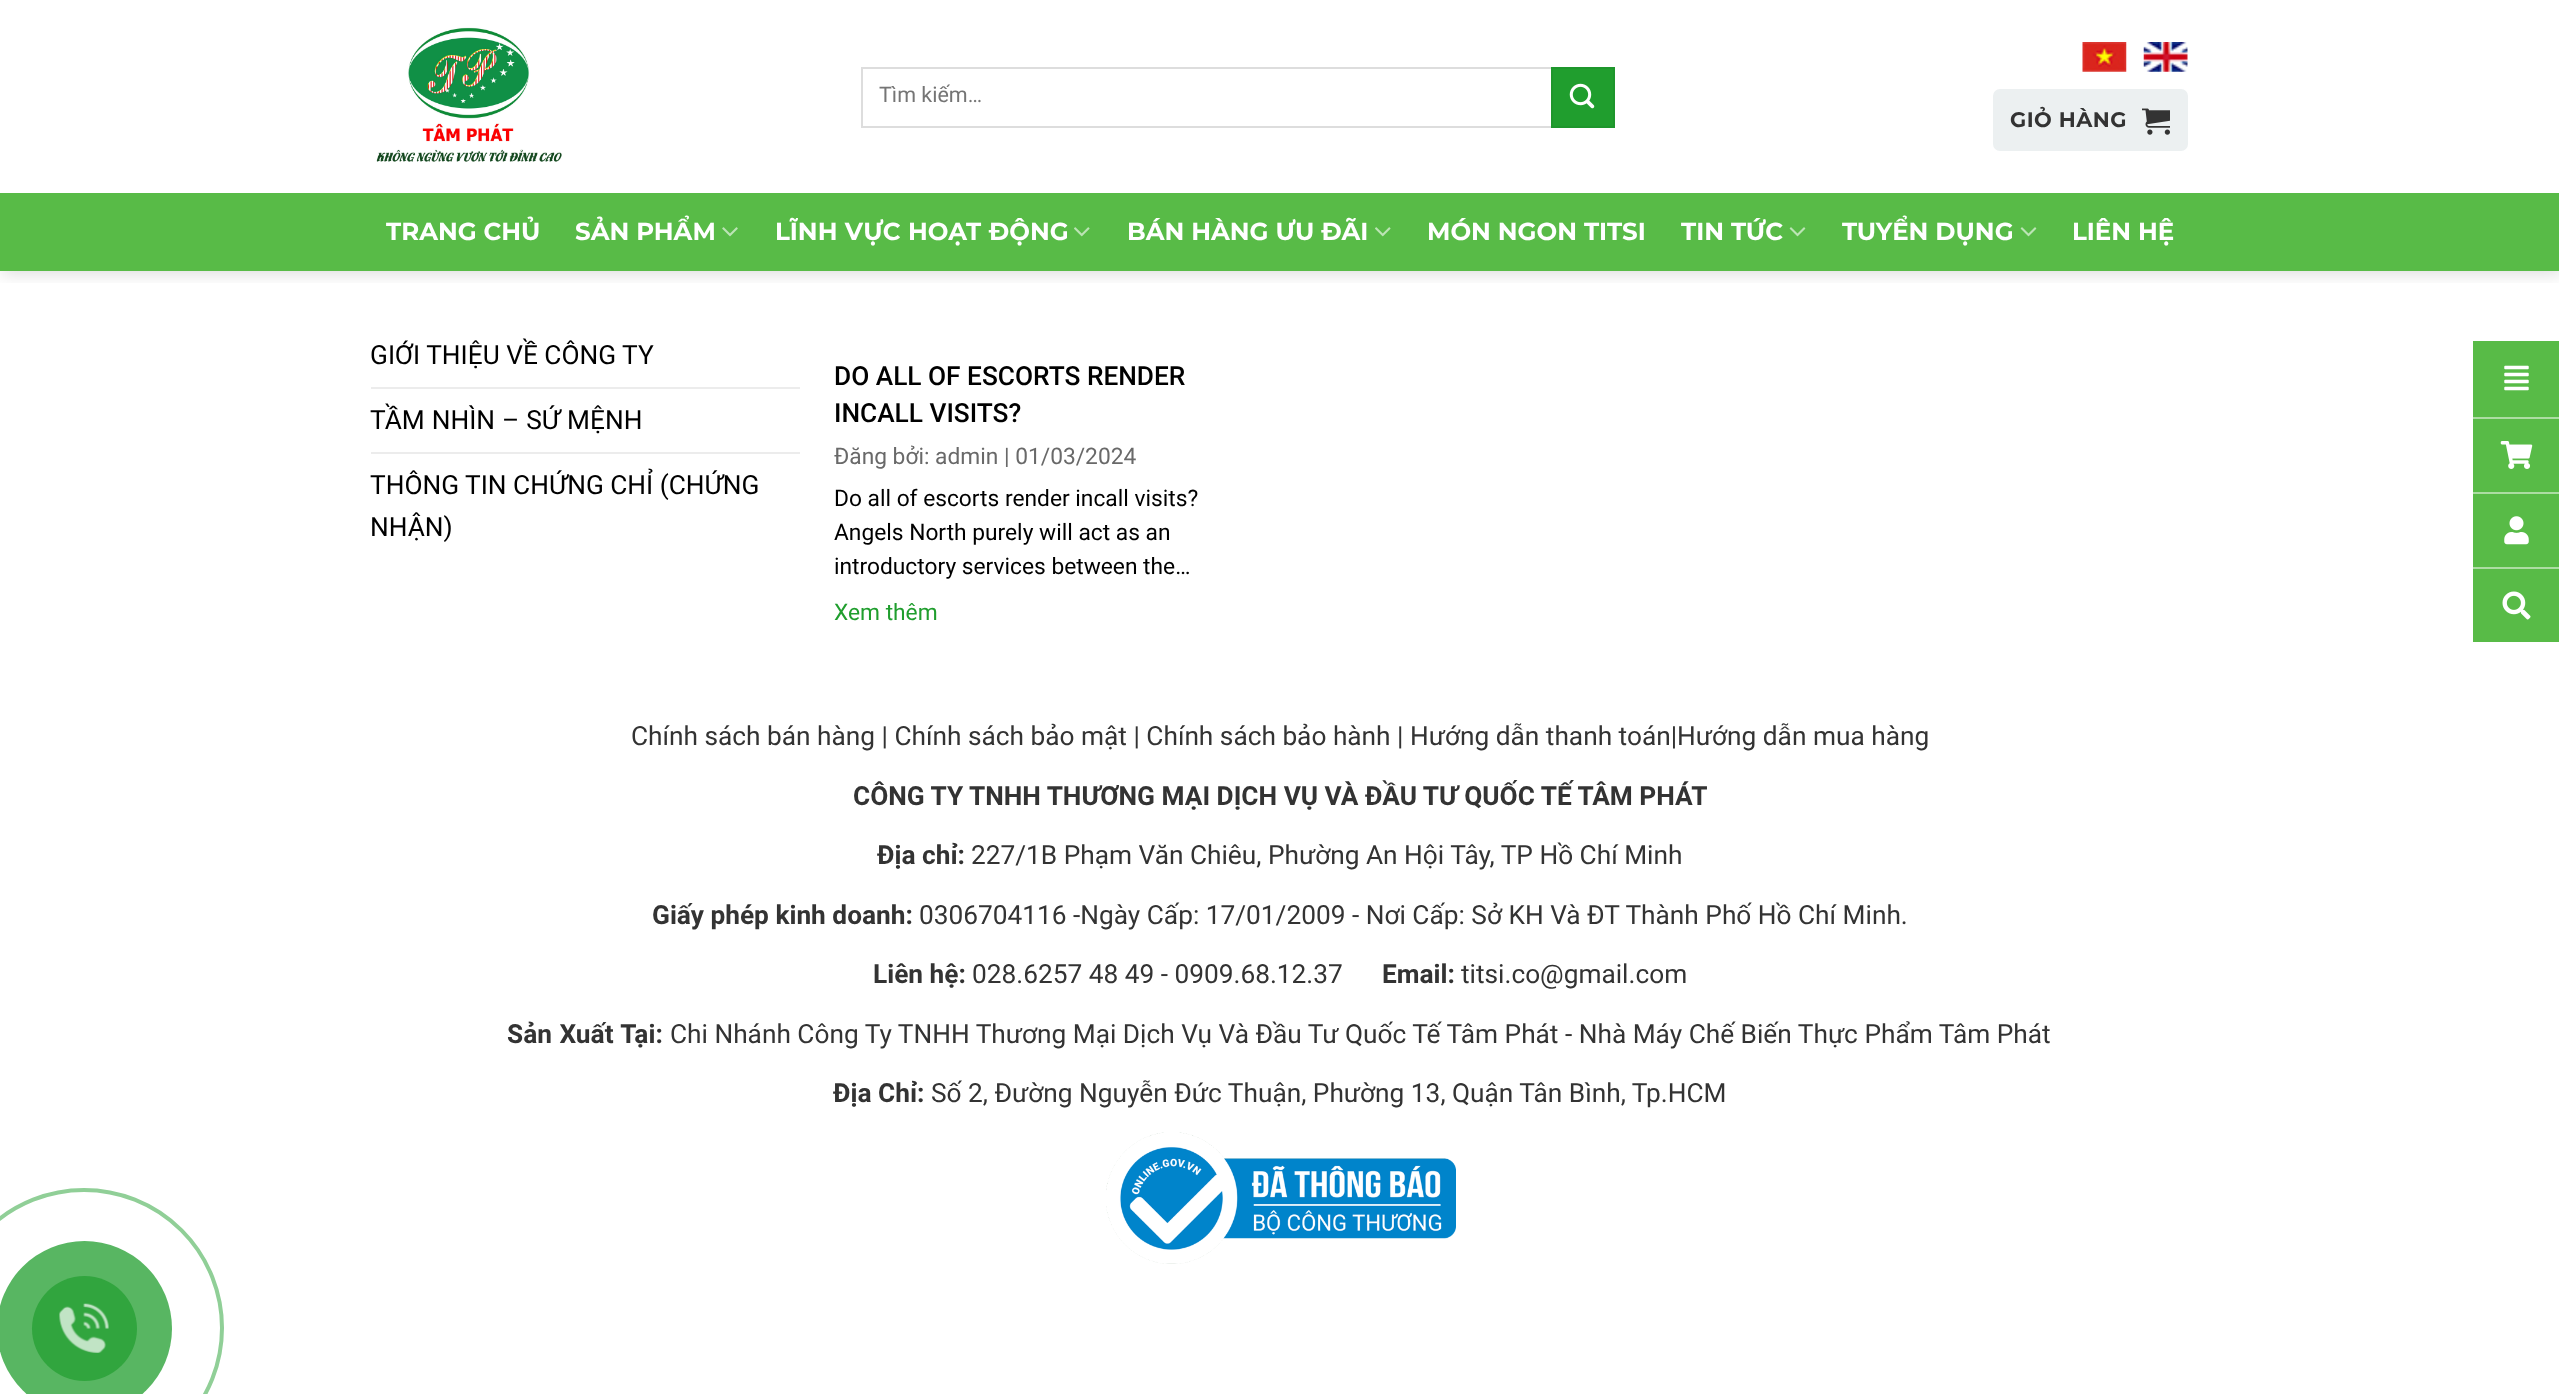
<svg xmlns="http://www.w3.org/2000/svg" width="2559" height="1394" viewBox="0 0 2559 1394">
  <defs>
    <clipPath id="clip1"><path d="M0 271h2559v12H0z"/></clipPath>
  </defs>
  <rect width="100%" height="100%" fill="#fff"/>
  <g clip-path="url(#clip1)">
    <path d="M2 2h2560v271H2z" fill="#00000026" filter="blur(9px)"/>
  </g>
  <image x="376" y="27" width="186" height="135" href="img/1.png"/>
  <path d="M861 67h690v2H861z" fill="#ddd"/>
  <path d="M861 126h690v2H861z" fill="#ddd"/>
  <path d="M861 67h2v61H861z" fill="#ddd"/>
  <path d="M1552 68h62v59H1552z" fill="#209e2e" stroke="#1e962c" stroke-width="2"/>
  <image x="1569" y="83" width="26" height="26" href="img/2.png"/>
  <image x="2082" y="42" width="45" height="30" href="img/3.png"/>
  <image x="2143" y="42" width="45" height="30" href="img/4.png"/>
  <rect x="1993" y="89" width="195" height="62" rx="7" fill="#ecf0f1"/>
  <image x="2142" y="108" width="28" height="27" href="img/5.png"/>
  <path d="M0 193h2559v78H0z" fill="#58bb47"/>
  <image x="722" y="227" width="16" height="10" href="img/6.png"/>
  <image x="1074" y="227" width="16" height="10" href="img/7.png"/>
  <image x="1375" y="227" width="16" height="10" href="img/7.png"/>
  <image x="1789" y="227" width="17" height="10" href="img/8.png"/>
  <image x="2020" y="227" width="17" height="10" href="img/8.png"/>
  <path d="M371 387h429v2H371z" fill="#ececec"/>
  <path d="M371 452h429v2H371z" fill="#ececec"/>
  <image x="1106" y="1132" width="350" height="132" href="img/9.png"/>
  <path d="M2473 341h86v301H2473z" fill="#58bb47"/>
  <image x="2504" y="365" width="25" height="26" href="img/10.png"/>
  <path d="M2473 417h86v2H2473z" fill="#acdda3"/>
  <image x="2500" y="441" width="33" height="28" href="img/11.png"/>
  <path d="M2473 492h86v2H2473z" fill="#acdda3"/>
  <image x="2504" y="516" width="25" height="29" href="img/12.png"/>
  <path d="M2473 567h86v2H2473z" fill="#acdda3"/>
  <image x="2502" y="591" width="29" height="29" href="img/13.png"/>
  <circle cx="84" cy="1328" r="138" fill="none" stroke="#90cf97" stroke-width="4"/>
  <circle cx="84.5" cy="1328.5" r="87.5" fill="#58b662"/>
  <circle cx="84.5" cy="1328.5" r="52.5" fill="#31a53e"/>
  <image x="59" y="1303" width="50" height="50" href="img/14.png"/>
  <text x="879" y="102" font-family="Roboto" font-size="21.5" fill="#757575">Tìm kiếm…</text>
  <text x="2010" y="127" font-family="Montserrat" font-size="21" font-weight="bold" letter-spacing="0.5" fill="#333">GIỎ HÀNG</text>
  <g font-family="Montserrat" font-size="24.5" font-weight="bold" fill="#fff">
    <text x="386" y="240">TRANG CHỦ</text>
    <text x="575" y="240">SẢN PHẨM</text>
    <text x="775" y="240" word-spacing="0.5">LĨNH VỰC HOẠT ĐỘNG</text>
    <text x="1127" y="240">BÁN HÀNG ƯU ĐÃI</text>
    <text x="1427" y="240">MÓN NGON TITSI</text>
    <text x="1681" y="240">TIN TỨC</text>
    <text x="1842" y="240">TUYỂN DỤNG</text>
    <text x="2072" y="240">LIÊN HỆ</text>
  </g>
  <g font-family="Roboto" font-size="26.25" fill="#000">
    <text x="370" y="364">GIỚI THIỆU VỀ CÔNG TY</text>
    <text x="370" y="429" word-spacing="0.5">TẦM NHÌN – SỨ MỆNH</text>
    <text x="370" y="494">THÔNG TIN CHỨNG CHỈ (CHỨNG</text>
    <text x="370" y="536">NHẬN)</text>
  </g>
  <g font-family="Roboto" font-size="26.25" font-weight="500" fill="#000">
    <text x="834" y="385">DO ALL OF ESCORTS RENDER</text>
    <text x="834" y="422">INCALL VISITS?</text>
  </g>
  <text x="834" y="464" font-family="Roboto" font-size="22.75" fill="#696969">Đăng bởi: admin | 01/03/2024</text>
  <g font-family="Roboto" font-size="22.75" fill="#000">
    <text x="834" y="506">Do all of escorts render incall visits?</text>
    <text x="834" y="540">Angels North purely will act as an</text>
    <text x="834" y="574">introductory services between the…</text>
  </g>
  <text x="834" y="620" font-family="Roboto" font-size="22.75" fill="#209e2e">Xem thêm</text>
  <text x="631" y="745" font-family="Roboto" font-size="26.25" fill="#333">Chính sách bán hàng | Chính sách bảo mật | Chính sách bảo hành | Hướng dẫn thanh toán|Hướng dẫn mua hàng</text>
  <g font-family="Roboto" font-size="26.25" font-weight="bold" fill="#333">
    <text x="853" y="805">CÔNG TY TNHH THƯƠNG MẠI DỊCH VỤ VÀ ĐẦU TƯ QUỐC TẾ TÂM PHÁT</text>
    <text x="877" y="864">Địa chỉ:</text>
  </g>
  <text x="971" y="864" font-family="Roboto" font-size="26.25" fill="#333">227/1B Phạm Văn Chiêu, Phường An Hội Tây, TP Hồ Chí Minh</text>
  <text x="652" y="924" font-family="Roboto" font-size="26.25" font-weight="bold" fill="#333">Giấy phép kinh doanh:</text>
  <text x="919" y="924" font-family="Roboto" font-size="26.25" fill="#333">0306704116 -Ngày Cấp: 17/01/2009 - Nơi Cấp: Sở KH Và ĐT Thành Phố Hồ Chí Minh.</text>
  <text x="873" y="983" font-family="Roboto" font-size="26.25" font-weight="bold" fill="#333">Liên hệ:</text>
  <text x="972" y="983" font-family="Roboto" font-size="26.25" fill="#333">028.6257 48 49 - 0909.68.12.37</text>
  <text x="1382" y="983" font-family="Roboto" font-size="26.25" font-weight="bold" fill="#333">Email:</text>
  <text x="1461" y="983" font-family="Roboto" font-size="26.25" fill="#333">titsi.co@gmail.com</text>
  <text x="507" y="1043" word-spacing="1" font-family="Roboto" font-size="26.25" font-weight="bold" fill="#333">Sản Xuất Tại:</text>
  <text x="670" y="1043" font-family="Roboto" font-size="26.25" fill="#333">Chi Nhánh Công Ty TNHH Thương Mại Dịch Vụ Và Đầu Tư Quốc Tế Tâm Phát - Nhà Máy Chế Biến Thực Phẩm Tâm Phát</text>
  <text x="833" y="1102" font-family="Roboto" font-size="26.25" font-weight="bold" fill="#333">Địa Chỉ:</text>
  <text x="931" y="1102" font-family="Roboto" font-size="26.25" fill="#333">Số 2, Đường Nguyễn Đức Thuận, Phường 13, Quận Tân Bình, Tp.HCM</text>
</svg>
